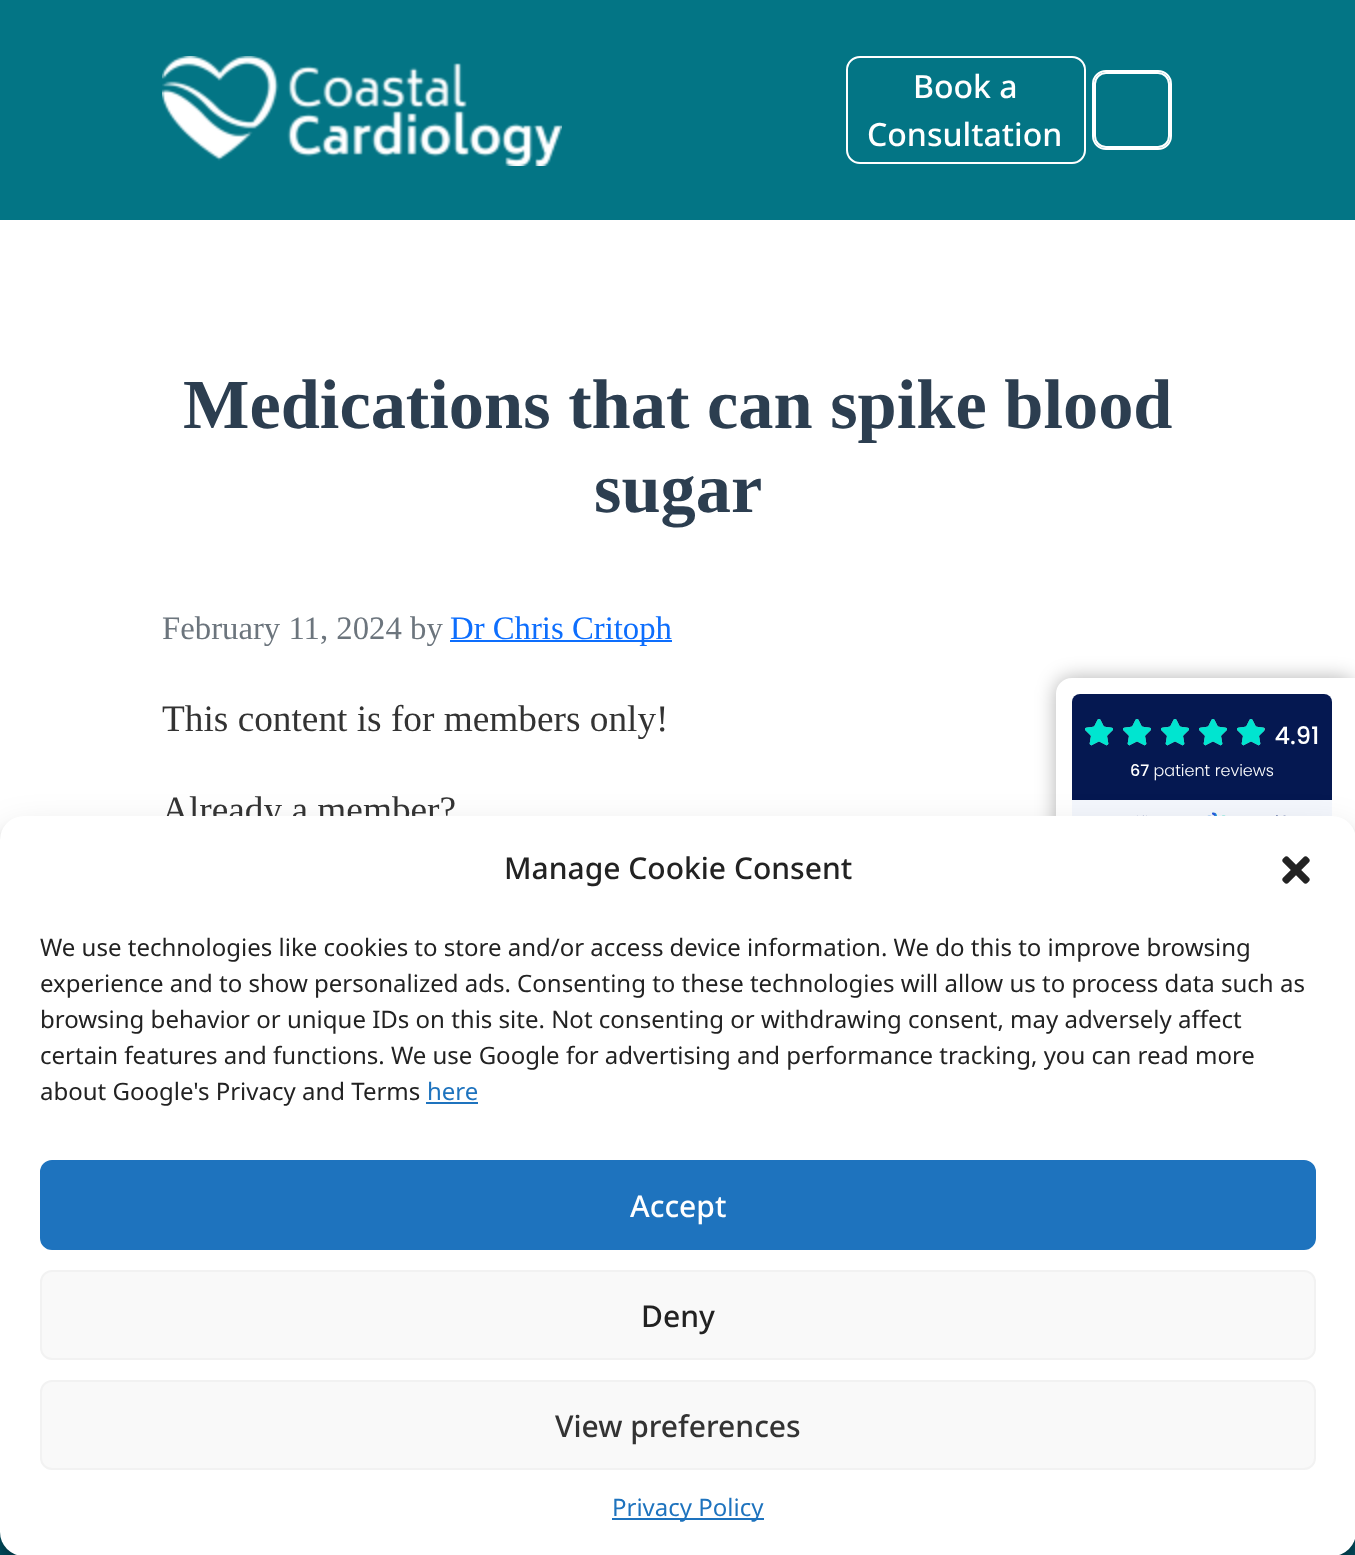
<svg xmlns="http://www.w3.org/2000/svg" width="1355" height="1555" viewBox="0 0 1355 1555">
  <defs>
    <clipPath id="clip1"><path d="M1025 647H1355V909H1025ZM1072 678H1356V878H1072C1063 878 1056 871 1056 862V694C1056 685 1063 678 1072 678Z" clip-rule="evenodd"/></clipPath>
  </defs>
  <rect width="100%" height="100%" fill="#fff"/>
  <path d="M0 0h1355v220H0z" fill="#037585"/>
  <image x="162" y="56" width="400" height="110" href="img/1.png"/>
  <rect x="847" y="57" width="238" height="106" rx="13" fill="none" stroke="#fff" stroke-width="2"/>
  <rect x="1095" y="73" width="74" height="74" rx="11" fill="none" stroke="#fff" stroke-width="2"/>
  <rect x="1093" y="71" width="78" height="78" rx="13" fill="none" stroke="#fff" stroke-width="2"/>
  <path d="M450 640h222v2H450z" fill="#0d6efd"/>
  <path d="M0 1532h1355v23H0z" fill="#005467"/>
  <g clip-path="url(#clip1)">
    <rect x="1056" y="678" width="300" height="200" rx="16" fill="#0000004d" filter="blur(10px)"/>
  </g>
  <image x="1072" y="694" width="260" height="122" href="img/2.png"/>
  <rect y="828" width="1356" height="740" rx="24" fill="#0000003b" filter="blur(6px)"/>
  <rect y="836" width="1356" height="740" rx="24" fill="#00000030" filter="blur(20px)"/>
  <g font-family="Noto Sans" font-size="32" font-weight="500" fill="#fff">
    <text x="913" y="98">Book a</text>
    <text x="867" y="146">Consultation</text>
  </g>
  <g font-family="Liberation Serif" font-size="70.4" font-weight="bold" fill="#2c3e50">
    <text x="183" y="428">Medications that can spike blood</text>
    <text x="594" y="512">sugar</text>
  </g>
  <text x="162" y="639" font-family="Liberation Serif" font-size="32.75" fill="#6c757d">February 11, 2024 by</text>
  <text x="450" y="639" font-family="Liberation Serif" font-size="32.75" fill="#0d6efd">Dr Chris Critoph</text>
  <g font-family="Liberation Serif" font-size="37.3" fill="#333">
    <text x="162" y="731">This content is for members only!</text>
    <text x="162" y="822">Already a member?</text>
  </g>
  <rect y="816" width="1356" height="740" rx="24" fill="#fff"/>
  <text x="504" y="879" font-family="Noto Sans" font-size="30" font-weight="500" fill="#222">Manage Cookie Consent</text>
  <image x="1282" y="856" width="28" height="28" href="img/3.png"/>
  <g font-family="Noto Sans" font-size="24" fill="#222">
    <text x="40" y="956">We use technologies like cookies to store and/or access device information. We do this to improve browsing</text>
    <text x="40" y="992">experience and to show personalized ads. Consenting to these technologies will allow us to process data such as</text>
    <text x="40" y="1028">browsing behavior or unique IDs on this site. Not consenting or withdrawing consent, may adversely affect</text>
    <text x="40" y="1064">certain features and functions. We use Google for advertising and performance tracking, you can read more</text>
    <text x="40" y="1100">about Google's Privacy and Terms</text>
  </g>
  <text x="427" y="1100" font-family="Noto Sans" font-size="24" fill="#1e73be">here</text>
  <path d="M426 1102h52v2H426z" fill="#1e73be"/>
  <rect x="41" y="1161" width="1274" height="88" rx="11" fill="#1e73be" stroke="#1e73be" stroke-width="2"/>
  <text x="630" y="1217" font-family="Noto Sans" font-size="30" font-weight="500" fill="#fff">Accept</text>
  <rect x="41" y="1271" width="1274" height="88" rx="11" fill="#f9f9f9" stroke="#f2f2f2" stroke-width="2"/>
  <text x="641" y="1327" font-family="Noto Sans" font-size="30" font-weight="500" fill="#222">Deny</text>
  <rect x="41" y="1381" width="1274" height="88" rx="11" fill="#f9f9f9" stroke="#f2f2f2" stroke-width="2"/>
  <text x="555" y="1437" font-family="Noto Sans" font-size="30" font-weight="500" fill="#333">View preferences</text>
  <path d="M612 1518h152v2H612z" fill="#1e73be"/>
  <text x="612" y="1516" font-family="Noto Sans" font-size="24" fill="#1e73be">Privacy Policy</text>
</svg>
